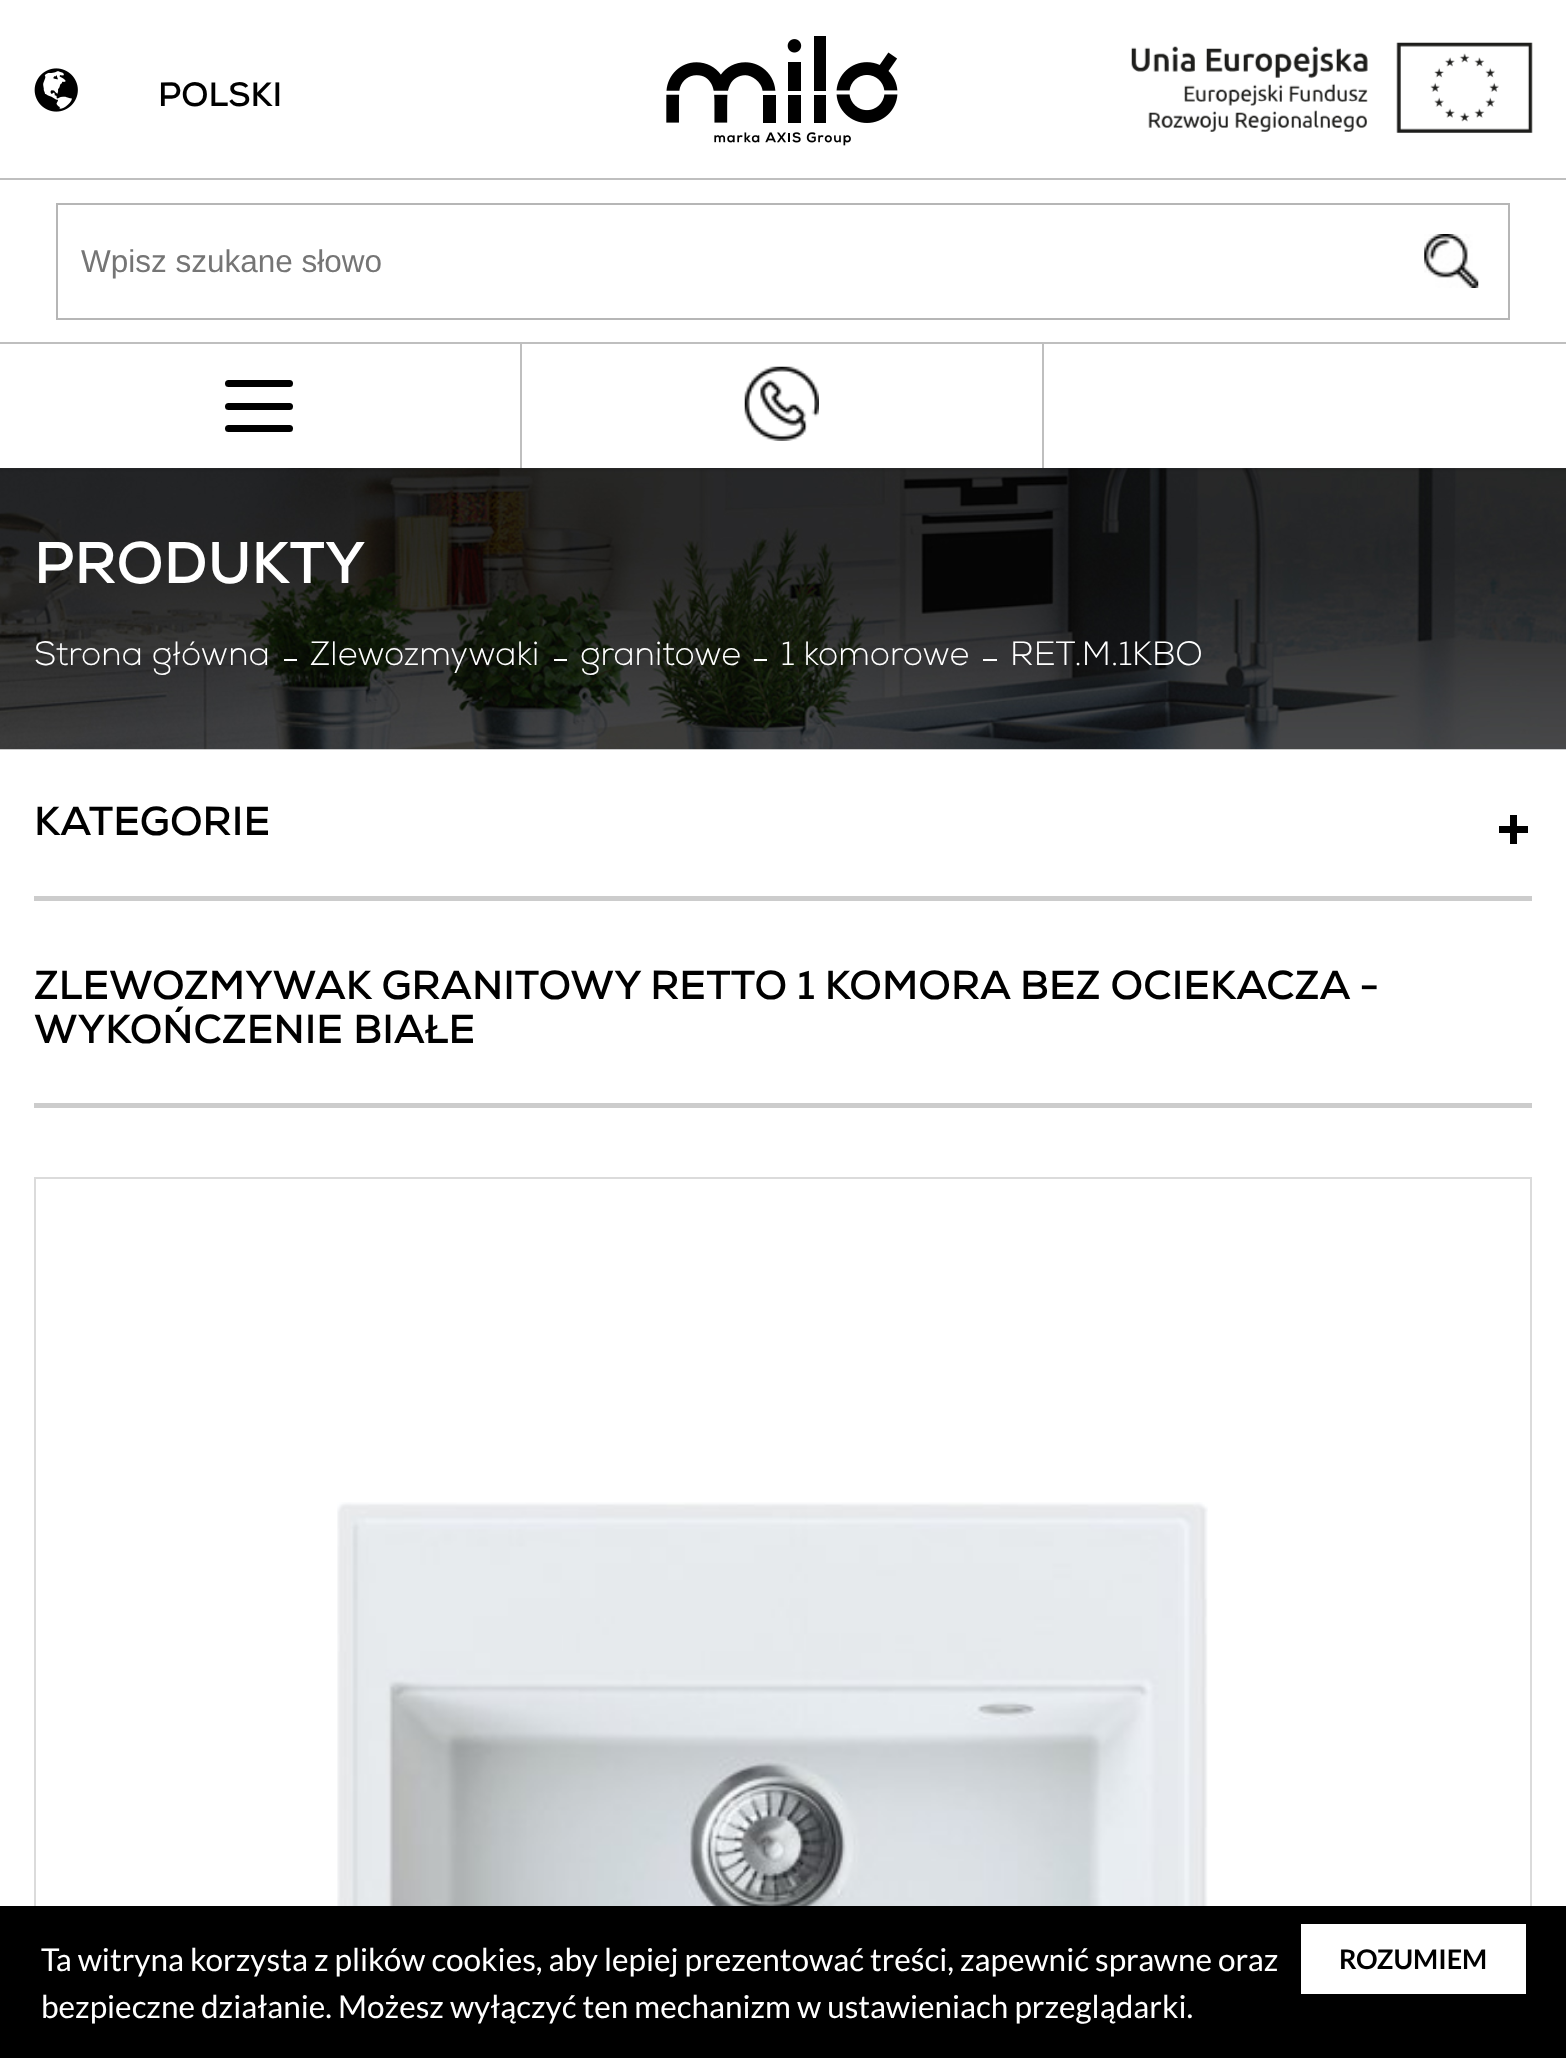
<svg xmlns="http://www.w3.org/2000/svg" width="1566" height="2058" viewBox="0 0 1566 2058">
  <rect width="100%" height="100%" fill="#fff"/>
  <path d="M0 178h1566v2H0z" fill="#bfbfbf"/>
  <image x="666" y="36" width="232" height="110" href="img/1.png"/>
  <image x="1131" y="42" width="402" height="91" href="img/2.png"/>
  <image x="0" y="468" width="1566" height="282" href="img/3.png"/>
  <image x="34" y="68" width="44" height="44" href="img/4.png"/>
  <path d="M284 659h13v2H284z" fill="#fff"/>
  <path d="M554 659h13v2H554z" fill="#fff"/>
  <path d="M754 659h13v2H754z" fill="#fff"/>
  <path d="M983 659h14v2H983z" fill="#fff"/>
  <path d="M0 342h1566v2H0z" fill="#bfbfbf"/>
  <path d="M57 204h1452v115H57z" fill="none" stroke="#b6b6b6" stroke-width="2"/>
  <image x="1424" y="234" width="55" height="54" href="img/5.png"/>
  <path d="M520 344h2v124H520z" fill="#bfbfbf"/>
  <rect x="225" y="425" width="68" height="7" rx="3.5" fill="#000"/>
  <rect x="225" y="380" width="68" height="7" rx="3.5" fill="#000"/>
  <rect x="225" y="403" width="68" height="7" rx="3.5" fill="#000"/>
  <path d="M1042 344h2v124H1042z" fill="#bfbfbf"/>
  <image x="744" y="366" width="75" height="75" href="img/6.png"/>
  <path d="M34 896h1498v5H34z" fill="#ccc"/>
  <path d="M1510 815h7v29H1510z" fill="#000"/>
  <path d="M1499 826h29v7H1499z" fill="#000"/>
  <path d="M34 1103h1498v5H34z" fill="#ccc"/>
  <path d="M35 1178h1496v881H35z" fill="none" stroke="#dbdbdb" stroke-width="2"/>
  <image x="337" y="1502" width="871" height="404" href="img/7.png"/>
  <path d="M0 1906h1566v152H0z" fill="#000"/>
  <path d="M1301 1924h225v70H1301z" fill="#fff"/>
  <text x="158" y="106" font-family="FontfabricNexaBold" font-size="33.75" font-weight="bold" fill="#000">POLSKI</text>
  <text x="34" y="583" font-family="FontfabricNexaBold" font-size="58.5" font-weight="bold" fill="#fff">PRODUKTY</text>
  <g font-family="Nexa" font-size="33.75" font-weight="300" fill="#fff">
    <text x="34" y="665">Strona główna</text>
    <text x="310" y="665">Zlewozmywaki</text>
    <text x="580" y="665">granitowe</text>
    <text x="781" y="665">1 komorowe</text>
    <text x="1010" y="665">RET.M.1KBO</text>
  </g>
  <text x="81" y="272" font-family="Liberation Sans" font-size="31.5" fill="#757575">Wpisz szukane słowo</text>
  <g font-family="FontfabricNexaBold" font-size="40.5" font-weight="bold" fill="#000">
    <text x="34" y="835">KATEGORIE</text>
    <text x="34" y="999">ZLEWOZMYWAK GRANITOWY RETTO 1 KOMORA BEZ OCIEKACZA -</text>
    <text x="34" y="1043">WYKOŃCZENIE BIAŁE</text>
  </g>
  <g font-family="Lato" font-size="31.5" fill="#fff">
    <text x="41" y="1971">Ta witryna korzysta z plików cookies, aby lepiej prezentować treści, zapewnić sprawne oraz</text>
    <text x="41" y="2018">bezpieczne działanie. Możesz wyłączyć ten mechanizm w ustawieniach przeglądarki.</text>
  </g>
  <text x="1339" y="1969" font-family="Lato" font-size="27" font-weight="bold" fill="#000">ROZUMIEM</text>
</svg>
